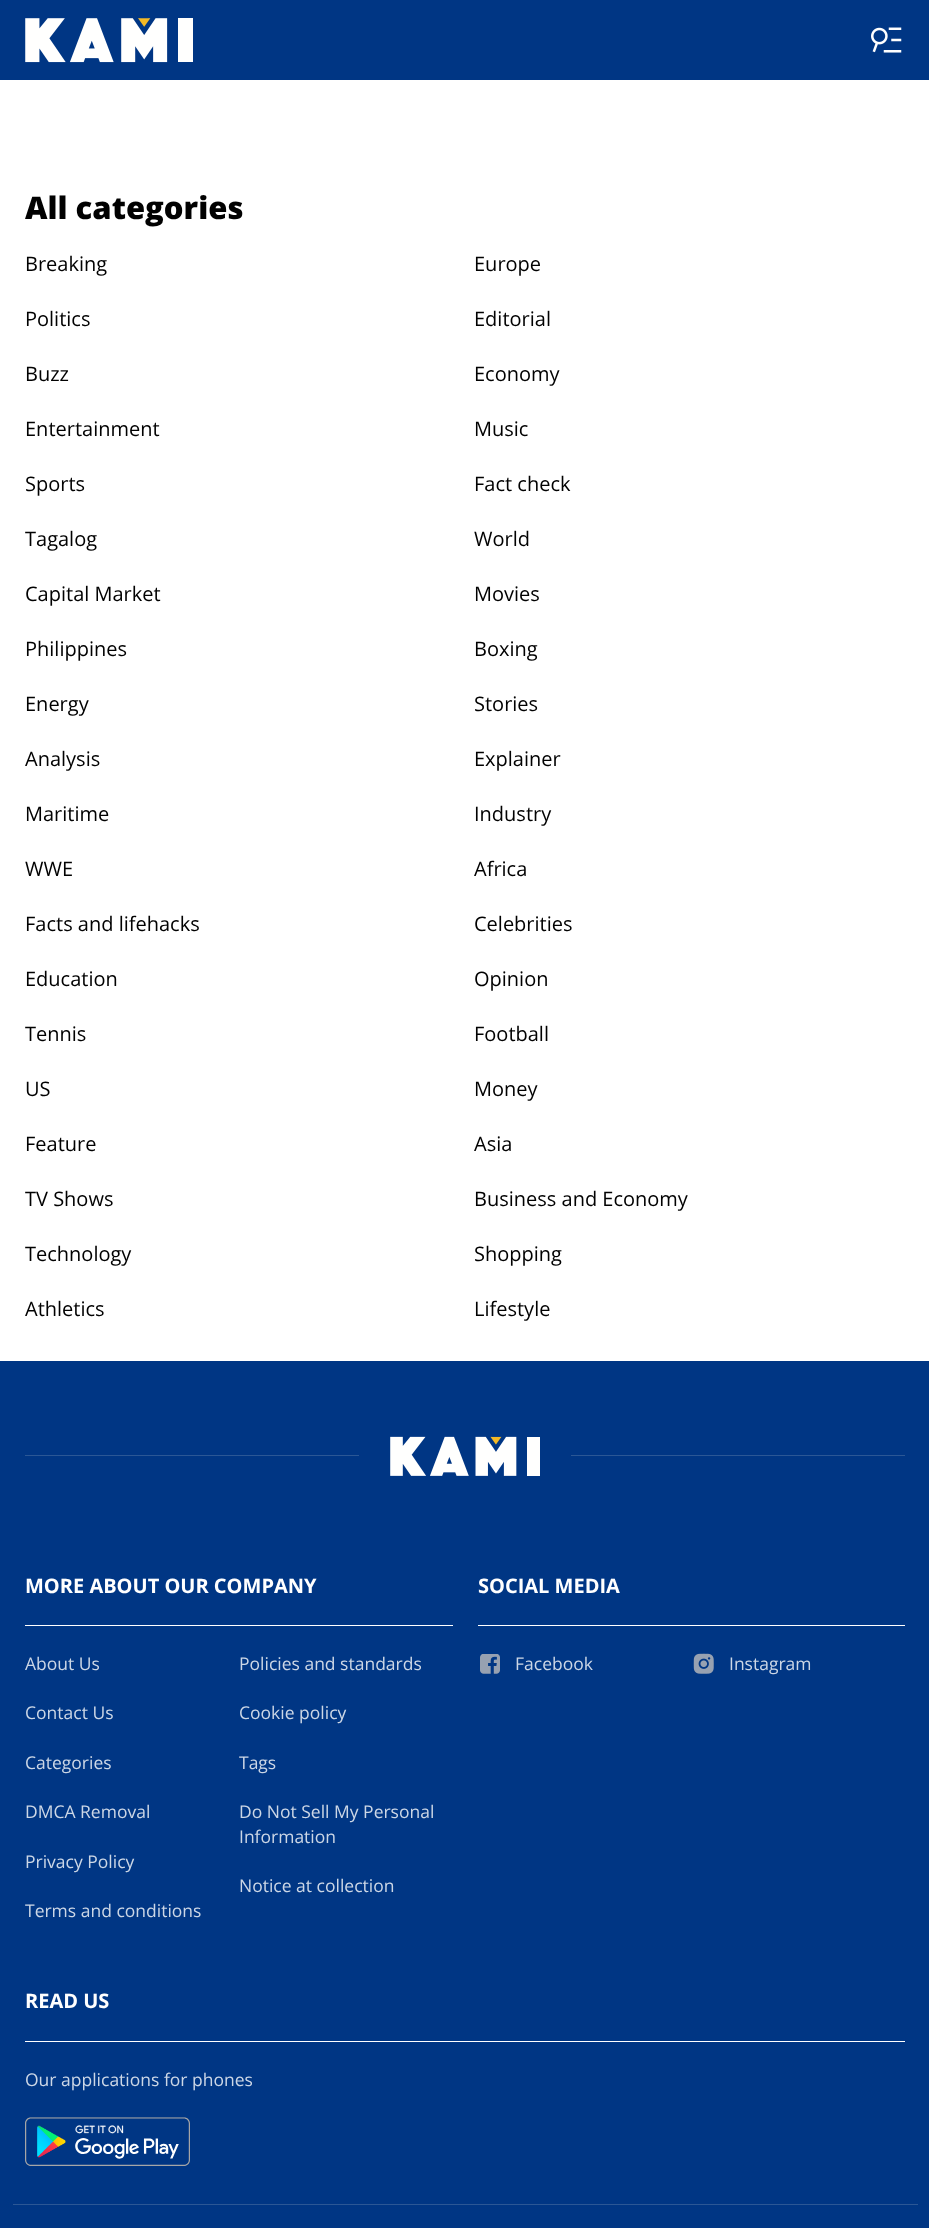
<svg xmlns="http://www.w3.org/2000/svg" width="929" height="2228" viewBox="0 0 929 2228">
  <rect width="100%" height="100%" fill="#fff"/>
  <path d="M0 0h929v80H0z" fill="#003684"/>
  <image x="25" y="18" width="168" height="45" href="img/1.png"/>
  <image x="871" y="27" width="31" height="26" href="img/2.png"/>
  <path d="M0 1361h929v867H0z" fill="#003684"/>
  <path d="M25 1455h334v1H25z" fill="#2b5795"/>
  <image x="390" y="1436" width="150" height="40" href="img/3.png"/>
  <path d="M571 1455h334v1H571z" fill="#2b5795"/>
  <path d="M25 1625h428v1H25z" fill="#fff"/>
  <path d="M478 1625h427v1H478z" fill="#fff"/>
  <image x="480" y="1654" width="20" height="20" href="img/4.png"/>
  <image x="693" y="1653" width="21" height="21" href="img/5.png"/>
  <path d="M25 2041h880v1H25z" fill="#fff"/>
  <image x="25" y="2117" width="165" height="49" href="img/6.png"/>
  <path d="M13 2204h905v1H13z" fill="#2b5795"/>
  <text x="25" y="219" font-family="Open Sans" font-size="31" font-weight="800" fill="#010101">All categories</text>
  <g font-family="Open Sans" font-size="20" fill="#010101">
    <text x="25" y="271">Breaking</text>
    <text x="474" y="271">Europe</text>
    <text x="25" y="326">Politics</text>
    <text x="474" y="326">Editorial</text>
    <text x="25" y="381">Buzz</text>
    <text x="474" y="381">Economy</text>
    <text x="25" y="436">Entertainment</text>
    <text x="474" y="436">Music</text>
    <text x="25" y="491">Sports</text>
    <text x="474" y="491">Fact check</text>
    <text x="25" y="546">Tagalog</text>
    <text x="474" y="546">World</text>
    <text x="25" y="601">Capital Market</text>
    <text x="474" y="601">Movies</text>
    <text x="25" y="656">Philippines</text>
    <text x="474" y="656">Boxing</text>
    <text x="25" y="711">Energy</text>
    <text x="474" y="711">Stories</text>
    <text x="25" y="766">Analysis</text>
    <text x="474" y="766">Explainer</text>
    <text x="25" y="821">Maritime</text>
    <text x="474" y="821">Industry</text>
    <text x="25" y="876">WWE</text>
    <text x="474" y="876">Africa</text>
    <text x="25" y="931">Facts and lifehacks</text>
    <text x="474" y="931">Celebrities</text>
    <text x="25" y="986">Education</text>
    <text x="474" y="986">Opinion</text>
    <text x="25" y="1041">Tennis</text>
    <text x="474" y="1041">Football</text>
    <text x="25" y="1096">US</text>
    <text x="474" y="1096">Money</text>
    <text x="25" y="1151">Feature</text>
    <text x="474" y="1151">Asia</text>
    <text x="25" y="1206">TV Shows</text>
    <text x="474" y="1206">Business and Economy</text>
    <text x="25" y="1261">Technology</text>
    <text x="474" y="1261">Shopping</text>
    <text x="25" y="1316">Athletics</text>
    <text x="474" y="1316">Lifestyle</text>
  </g>
  <text x="25" y="1593" font-family="Open Sans" font-size="20" font-weight="bold" fill="#fff">MORE ABOUT OUR COMPANY</text>
  <g font-family="Open Sans" font-size="17.5" fill="#ccd7e6">
    <text x="25" y="1670">About Us</text>
    <text x="25" y="1719">Contact Us</text>
    <text x="25" y="1769">Categories</text>
    <text x="25" y="1818">DMCA Removal</text>
    <text x="25" y="1868">Privacy Policy</text>
    <text x="25" y="1917">Terms and conditions</text>
    <text x="239" y="1670">Policies and standards</text>
    <text x="239" y="1719">Cookie policy</text>
    <text x="239" y="1769">Tags</text>
    <text x="239" y="1818">Do Not Sell My Personal</text>
    <text x="239" y="1843">Information</text>
    <text x="239" y="1892">Notice at collection</text>
  </g>
  <text x="478" y="1593" font-family="Open Sans" font-size="20" font-weight="bold" fill="#fff">SOCIAL MEDIA</text>
  <g font-family="Open Sans" font-size="17.5" fill="#ccd7e6">
    <text x="515" y="1670">Facebook</text>
    <text x="729" y="1670">Instagram</text>
  </g>
  <text x="25" y="2008" font-family="Open Sans" font-size="20" font-weight="bold" fill="#fff">READ US</text>
  <text x="25" y="2086" font-family="Open Sans" font-size="17.5" fill="#ccd7e6">Our applications for phones</text>
</svg>
